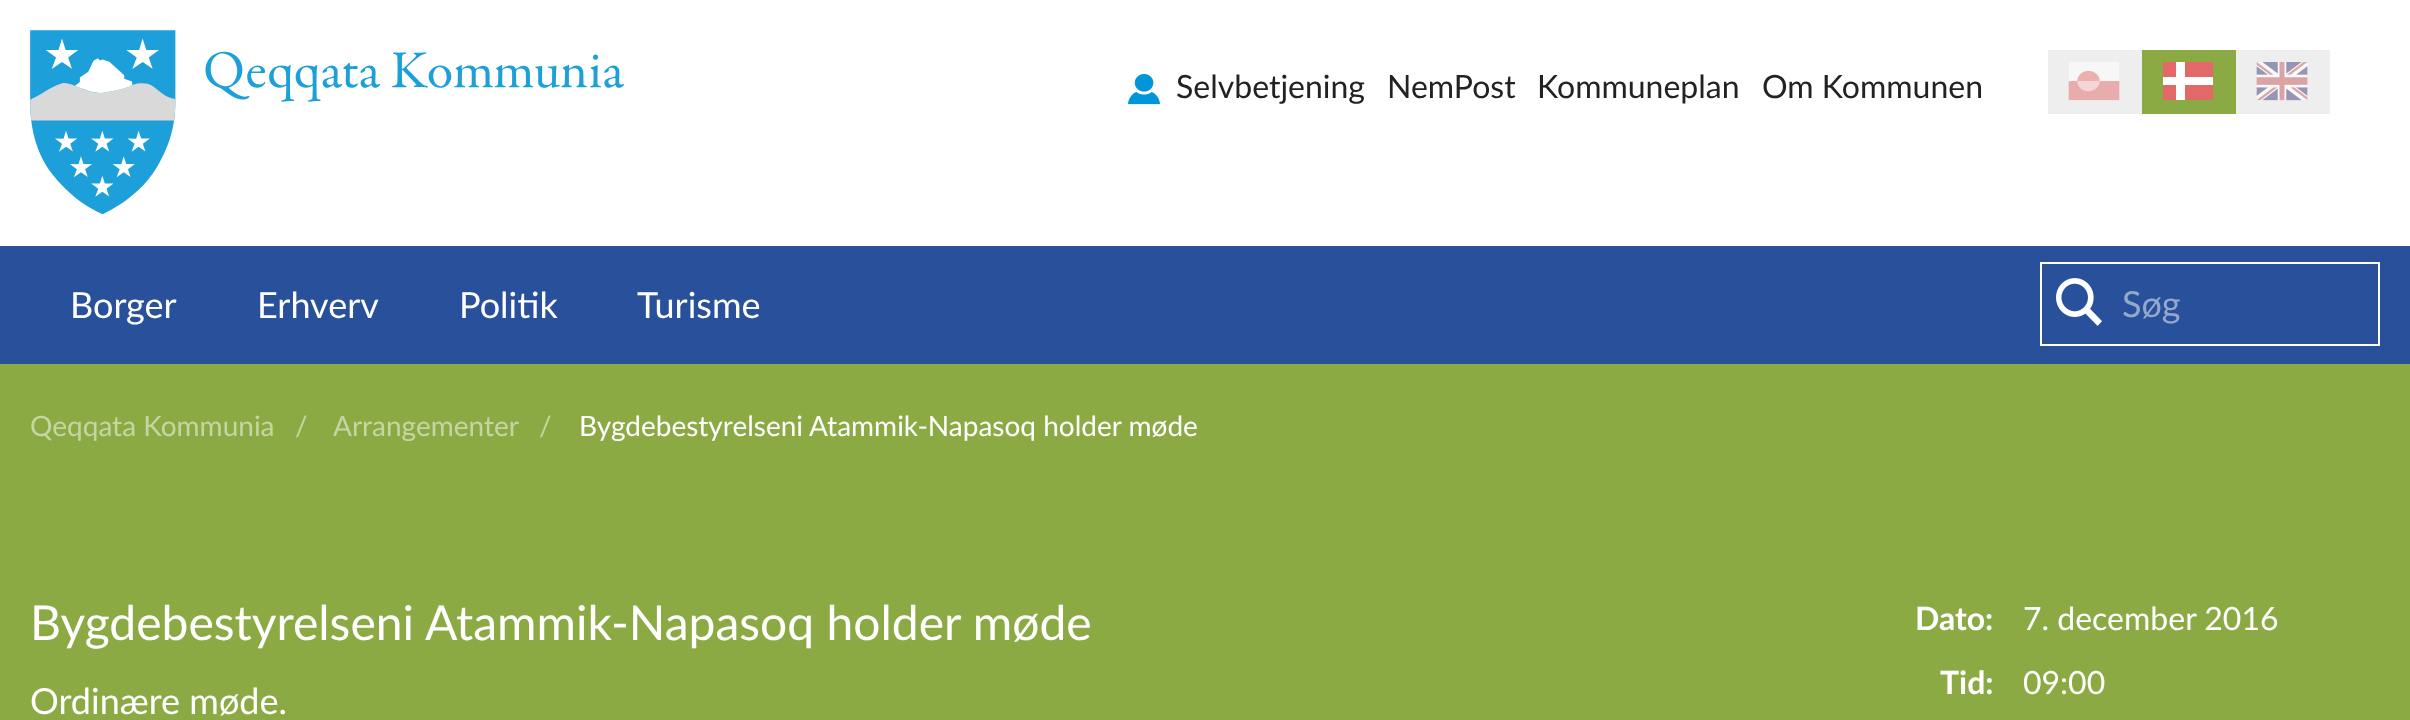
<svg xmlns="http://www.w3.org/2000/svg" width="2410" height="720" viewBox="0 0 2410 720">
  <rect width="100%" height="100%" fill="#fff"/>
  <image x="30" y="30" width="594" height="185" href="img/1.png"/>
  <image x="1128" y="74" width="32" height="31" href="img/2.png"/>
  <path d="M2048 50h94v64H2048z" fill="#eee"/>
  <image x="2068" y="62" width="52" height="39" href="img/3.png"/>
  <path d="M2142 50h94v64H2142z" fill="#8caa44"/>
  <path d="M2163 62h50v38H2163z" fill="#fff"/>
  <path d="M2163 62h13v15H2163z" fill="#e36969"/>
  <path d="M2163 85h13v15H2163z" fill="#e36969"/>
  <path d="M2185 62h28v15H2185z" fill="#e36969"/>
  <path d="M2185 85h28v15H2185z" fill="#e36969"/>
  <path d="M2236 50h94v64H2236z" fill="#eee"/>
  <image x="2256" y="62" width="52" height="39" href="img/4.png"/>
  <path d="M0 246h2410v118H0z" fill="#28509b"/>
  <image x="2056" y="278" width="46" height="48" href="img/5.png"/>
  <path d="M2041 263h338v82H2041z" fill="none" stroke="#fff" stroke-width="2"/>
  <path d="M0 364h2410v356H0z" fill="#8caa44"/>
  <g font-family="Lato" font-size="32" fill="#222">
    <text x="1176" y="98">Selvbetjening</text>
    <text x="1387" y="98">NemPost</text>
    <text x="1537" y="98">Kommuneplan</text>
    <text x="1762" y="98">Om Kommunen</text>
  </g>
  <g font-family="Lato" font-size="36" fill="#fff">
    <text x="70" y="318">Borger</text>
    <text x="257" y="318">Erhverv</text>
    <text x="459" y="318">Politik</text>
    <text x="637" y="318">Turisme</text>
  </g>
  <text x="2122" y="317" font-family="Lato" font-size="36" fill="#94a8cd">Søg</text>
  <g font-family="Lato" font-size="28" fill="#c6d5a2">
    <text x="30" y="436">Qeqqata Kommunia</text>
    <text x="295" y="436">/</text>
    <text x="333" y="436">Arrangementer</text>
    <text x="539" y="436">/</text>
  </g>
  <g font-family="Lato" font-size="28" fill="#fff">
    <text x="579" y="436">Bygdebestyrelseni</text>
    <text x="809" y="436">Atammik-Napasoq holder møde</text>
  </g>
  <g font-family="Lato" font-size="48" fill="#fff">
    <text x="30" y="640">Bygdebestyrelseni</text>
    <text x="425" y="640">Atammik-Napasoq holder møde</text>
  </g>
  <text x="30" y="714" font-family="Lato" font-size="36" fill="#fff">Ordinære møde.</text>
  <text x="1915" y="630" font-family="Lato" font-size="32" font-weight="bold" fill="#fff">Dato:</text>
  <text x="2023" y="630" font-family="Lato" font-size="32" fill="#fff">7. december 2016</text>
  <text x="1940" y="694" font-family="Lato" font-size="32" font-weight="bold" fill="#fff">Tid:</text>
  <text x="2023" y="694" font-family="Lato" font-size="32" fill="#fff">09:00</text>
</svg>
